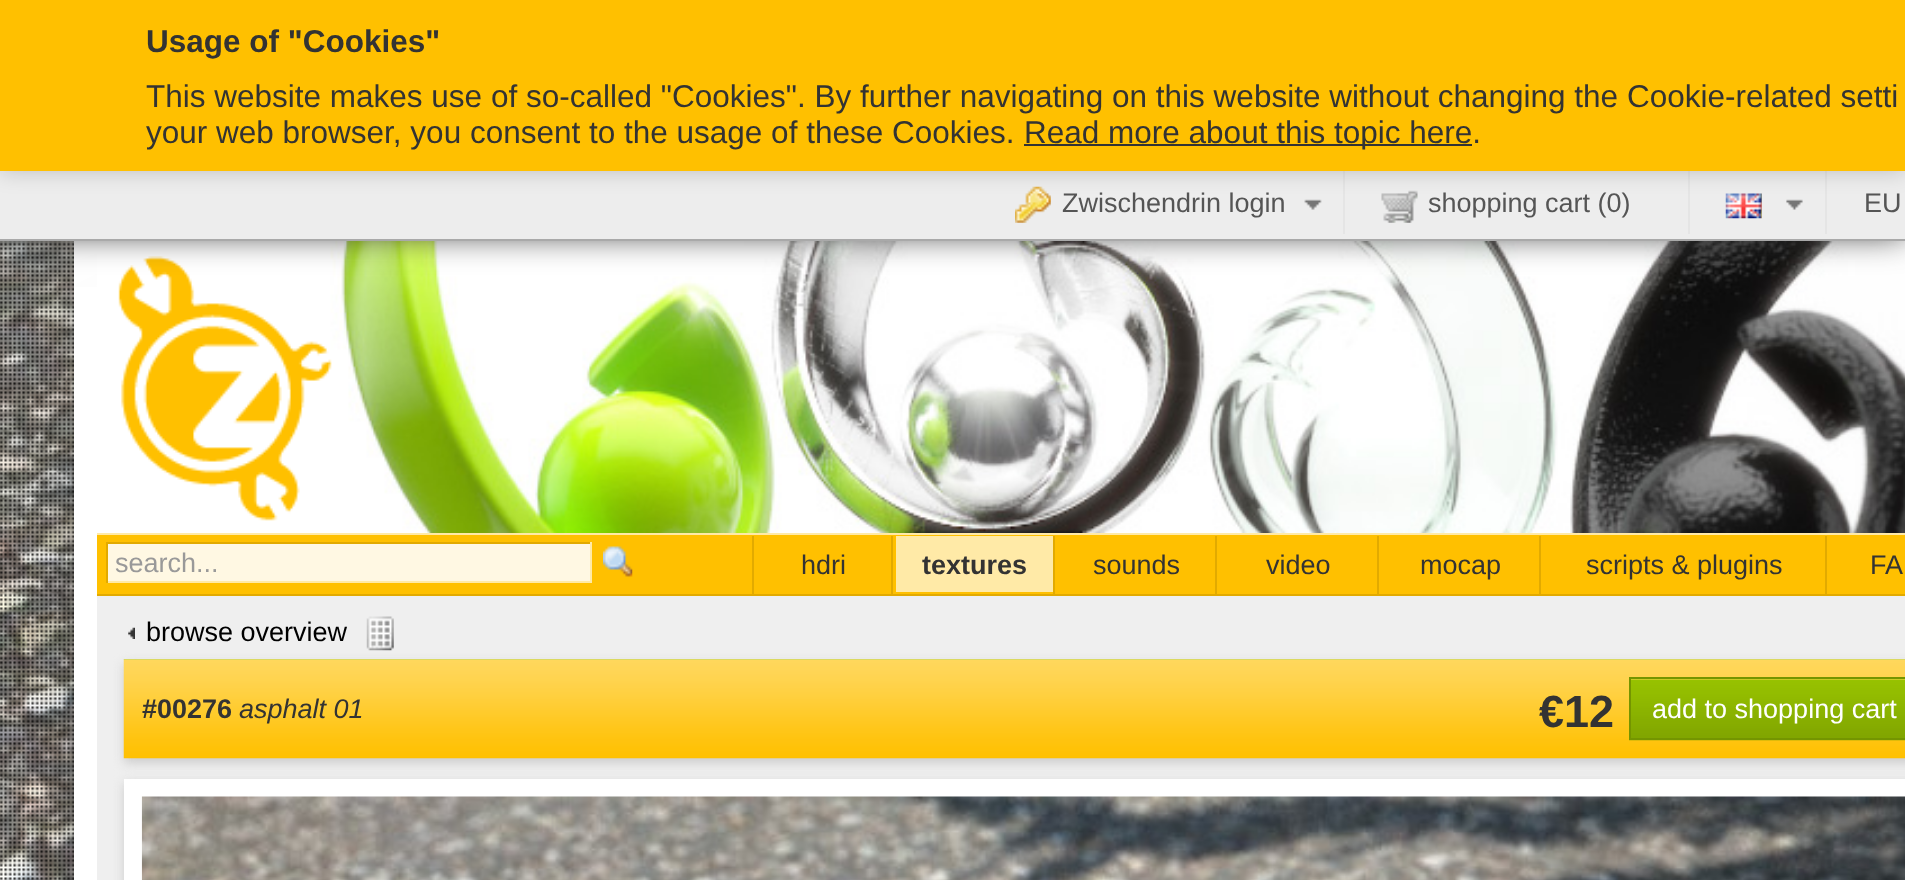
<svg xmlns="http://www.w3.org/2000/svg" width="1905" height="880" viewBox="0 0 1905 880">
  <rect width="100%" height="100%" fill="#fff"/>
  <image x="0" y="241" width="74" height="639" href="img/1.png"/>
  <image x="0" y="241" width="74" height="639" href="img/2.png"/>
  <path d="M142 398h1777v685H142z" fill="#333" filter="blur(67.5px)"/>
  <path d="M74 287h23v593H74z" fill="#fff"/>
  <image x="96" y="241" width="1809" height="293" href="img/8.png"/>
  <image x="118" y="256" width="214" height="265" href="img/9.png"/>
  <path d="M0 164h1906v70H0z" fill="#333" filter="blur(17px)"/>
  <path d="M0 171h1905v68H0z" fill="#ededed"/>
  <path d="M1343 171h2v63H1343z" fill="#e5e5e5"/>
  <image x="1015" y="186" width="36" height="37" href="img/3.png"/>
  <image x="1304" y="199" width="18" height="11" href="img/4.png"/>
  <path d="M1688 171h2v63H1688z" fill="#e5e5e5"/>
  <image x="1381" y="190" width="37" height="33" href="img/5.png"/>
  <path d="M1825 171h2v63H1825z" fill="#e5e5e5"/>
  <image x="1725" y="193" width="37" height="26" href="img/6.png"/>
  <image x="1786" y="199" width="17" height="11" href="img/7.png"/>
  <path d="M0 0h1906v171H0z" fill="#00000033" filter="blur(11px)"/>
  <path d="M0 0h1905v171H0z" fill="#ffc000"/>
  <path d="M1024 144h448v2H1024z" fill="#333"/>
  <path d="M0 239h1905v2H0z" fill="#a9a9a9"/>
  <path d="M97 596h1808v284H97z" fill="#efefef"/>
  <path d="M97 535h1808v59H97z" fill="#ffc000"/>
  <path d="M97 533h1808v2H97z" fill="#ffeaa7"/>
  <path d="M97 594h1808v2H97z" fill="#e2aa00"/>
  <path d="M108 544h482v37H108z" fill="#fff8e3"/>
  <path d="M106 542h486v2H106z" fill="#e2aa00"/>
  <path d="M590 542h2v41H590z" fill="#ffeaa7"/>
  <path d="M106 581h486v2H106z" fill="#ffeaa7"/>
  <path d="M106 542h2v41H106z" fill="#e2aa00"/>
  <image x="603" y="546" width="30" height="32" href="img/10.png"/>
  <path d="M752 536h2v60H752z" fill="#e2aa00"/>
  <path d="M891 536h2v60H891z" fill="#e2aa00"/>
  <path d="M896 536h157v56H896z" fill="#ffeaa7"/>
  <path d="M1053 536h2v60H1053z" fill="#e2aa00"/>
  <path d="M1215 536h2v60H1215z" fill="#e2aa00"/>
  <path d="M1377 536h2v60H1377z" fill="#e2aa00"/>
  <path d="M1539 536h2v60H1539z" fill="#e2aa00"/>
  <path d="M1825 536h2v60H1825z" fill="#e2aa00"/>
  <image x="128" y="627" width="7" height="12" href="img/11.png"/>
  <image x="366" y="616" width="28" height="35" href="img/12.png"/>
  <path d="M124 664h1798v99H124z" fill="#ccc" filter="blur(5.5px)"/>
  <image x="123" y="659" width="1782" height="100" href="img/13.png"/>
  <image x="1629" y="679" width="276" height="62" href="img/14.png"/>
  <path d="M1630 678h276v61H1630z" fill="none" stroke="#749500" stroke-width="2"/>
  <path d="M124 783h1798v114H124z" fill="#ccc" filter="blur(5.5px)"/>
  <path d="M124 779h1781v101H124z" fill="#fff"/>
  <image x="141" y="796" width="1764" height="84" href="img/15.png"/>
  <text x="146" y="52" font-family="Liberation Sans" font-size="31.5" font-weight="bold" fill="#333">Usage of "Cookies"</text>
  <g font-family="Liberation Sans" font-size="31.5" fill="#333">
    <text x="146" y="107">This website makes use of so-called "Cookies". By further navigating on this website without changing the Cookie-related setti</text>
    <text x="146" y="143">your web browser, you consent to the usage of these Cookies.</text>
    <text x="1024" y="143">Read more about this topic here.</text>
  </g>
  <g font-family="Liberation Sans" font-size="27" fill="#555">
    <text x="1062" y="212">Zwischendrin login</text>
    <text x="1428" y="212">shopping cart (0)</text>
    <text x="1864" y="212">EU</text>
  </g>
  <text x="115" y="572" font-family="Liberation Sans" font-size="27" fill="#999">search...</text>
  <text x="801" y="574" font-family="Liberation Sans" font-size="27" fill="#333">hdri</text>
  <text x="922" y="574" font-family="Liberation Sans" font-size="27" font-weight="bold" fill="#333">textures</text>
  <g font-family="Liberation Sans" font-size="27" fill="#333">
    <text x="1093" y="574">sounds</text>
    <text x="1266" y="574">video</text>
    <text x="1420" y="574">mocap</text>
    <text x="1586" y="574">scripts &amp; plugins</text>
    <text x="1870" y="574">FA</text>
  </g>
  <text x="146" y="641" font-family="Liberation Sans" font-size="27" fill="#000">browse overview</text>
  <text x="142" y="718" font-family="Liberation Sans" font-size="27" font-weight="bold" fill="#333">#00276</text>
  <text x="239" y="718" font-family="Liberation Sans" font-size="27" font-style="italic" fill="#333">asphalt 01</text>
  <text x="1539" y="727" font-family="Liberation Sans" font-size="45" font-weight="bold" fill="#333">€12</text>
  <text x="1652" y="718" font-family="Liberation Sans" font-size="27" fill="#fff">add to shopping cart</text>
</svg>
